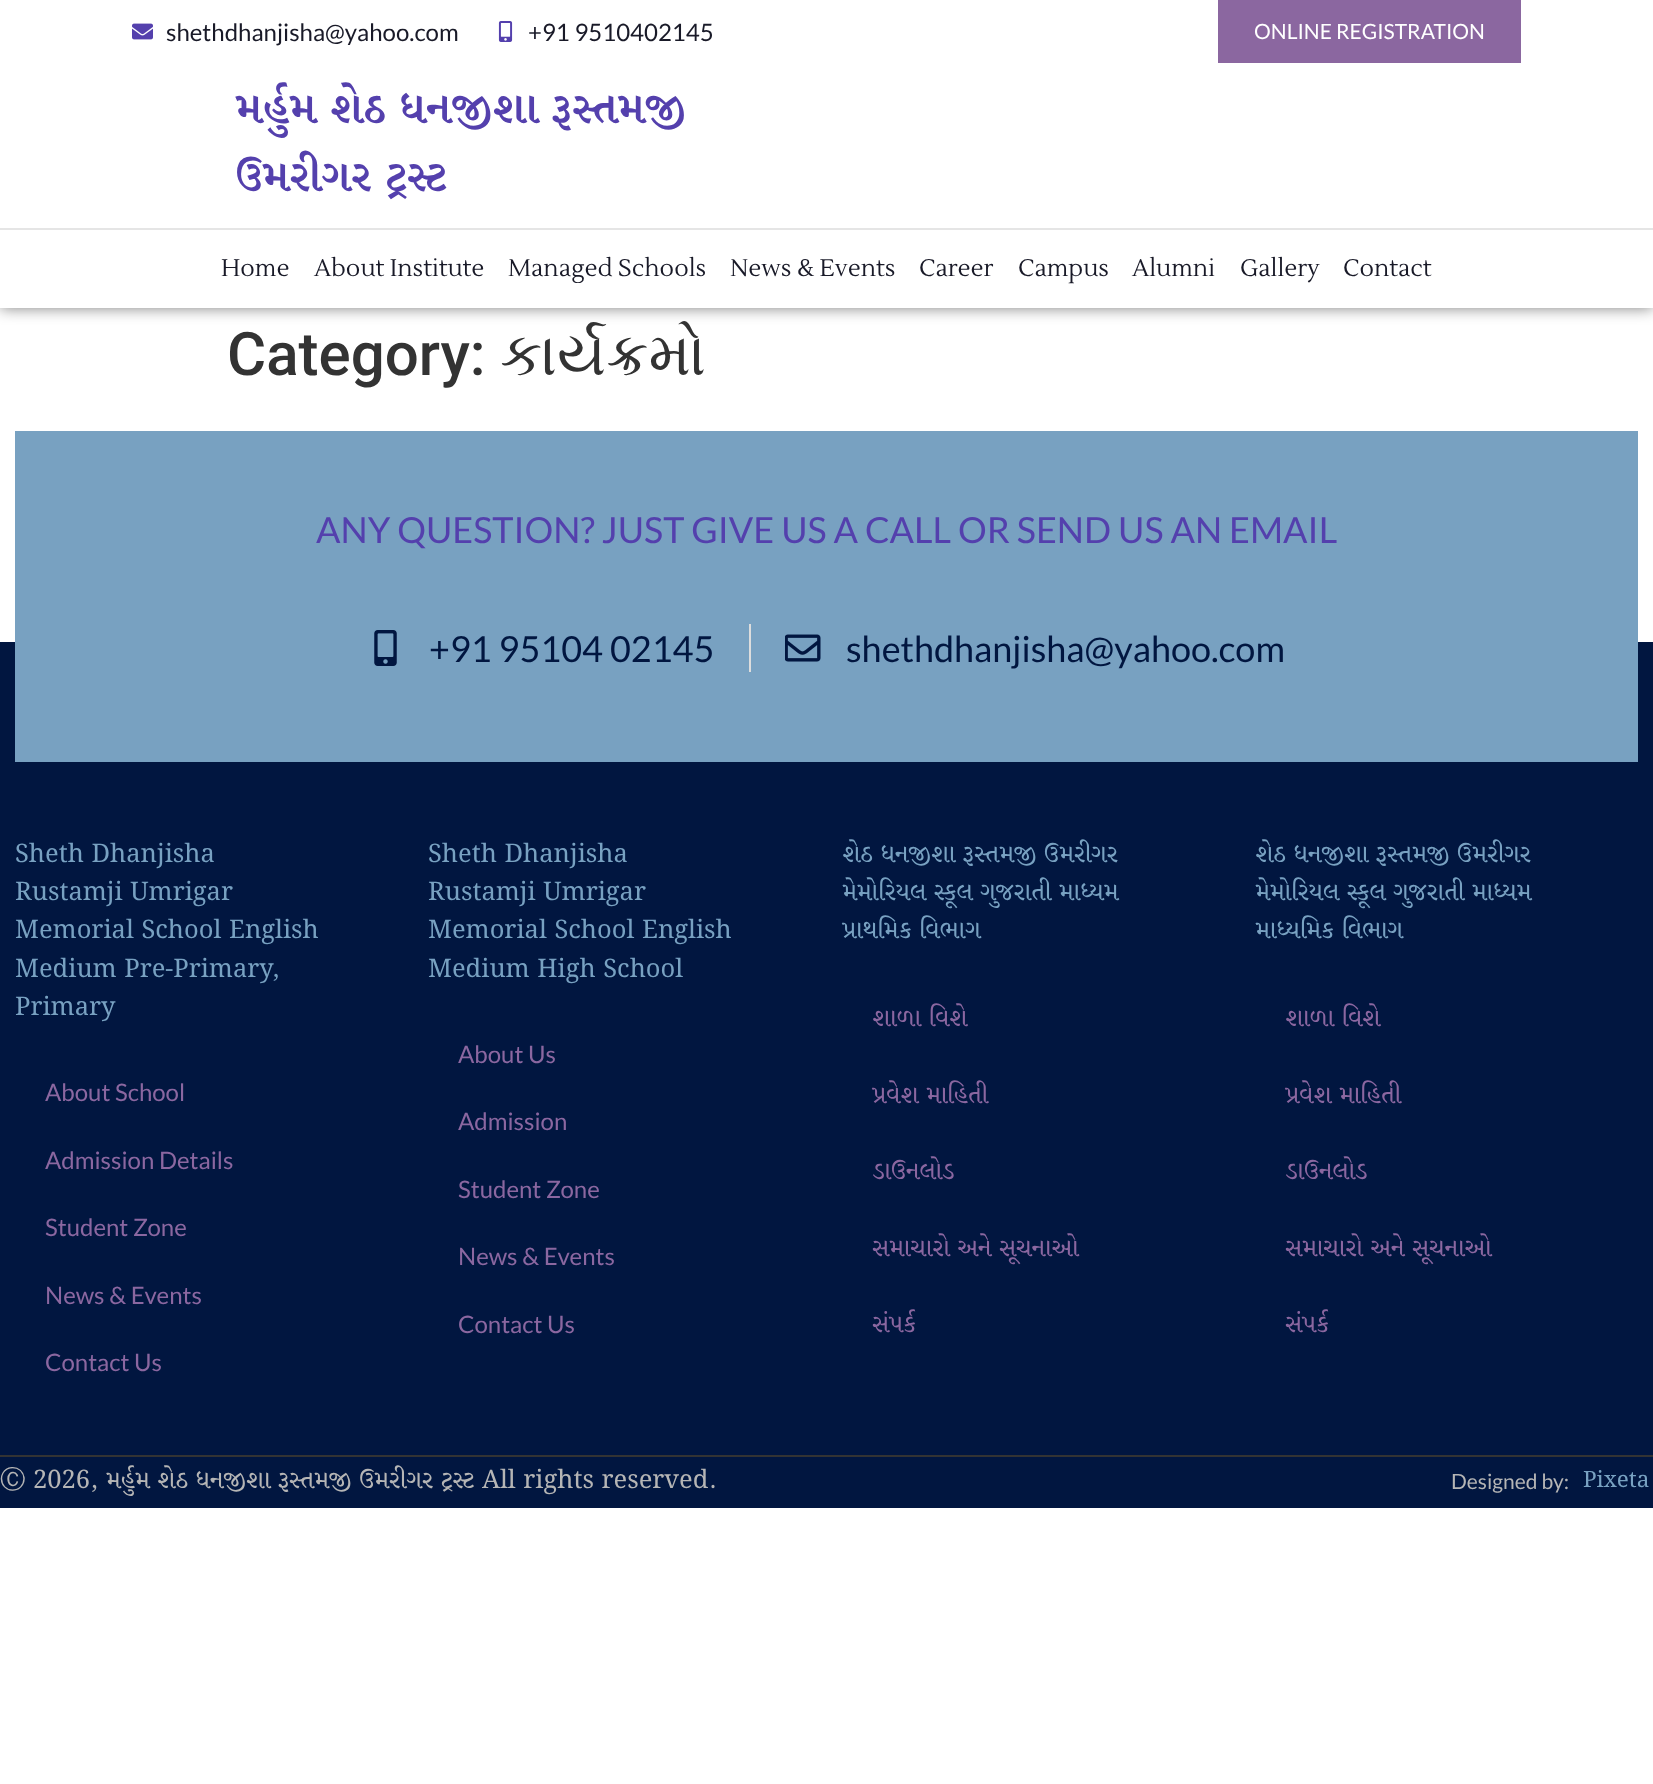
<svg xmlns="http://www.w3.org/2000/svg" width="1653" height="1784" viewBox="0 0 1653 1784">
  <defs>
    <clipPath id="clip1"><path d="M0 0H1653V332H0ZM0 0H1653V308H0Z" clip-rule="evenodd"/></clipPath>
  </defs>
  <rect width="100%" height="100%" fill="#fff"/>
  <g clip-path="url(#clip1)">
    <path d="M0 0h1653v308H0z" fill="#00000080" filter="blur(7.5px)"/>
  </g>
  <path d="M0 307h1653v1H0z" fill="#fffffff2"/>
  <image x="132" y="23" width="21" height="17" href="img/1.png"/>
  <image x="498" y="21" width="15" height="21" href="img/2.png"/>
  <path d="M1218 0h303v63H1218z" fill="#8b67a0"/>
  <path d="M0 228h1653v2H0z" fill="#e5e5e5"/>
  <path d="M0 642h1653v813H0z" fill="#011640"/>
  <path d="M15 431h1623v331H15z" fill="#78a1c1"/>
  <image x="374" y="630" width="23" height="36" href="img/3.png"/>
  <path d="M749 624h2v48H749z" fill="#ddd"/>
  <image x="785" y="634" width="36" height="28" href="img/4.png"/>
  <path d="M0 1457h1653v51H0z" fill="#011640"/>
  <path d="M0 1455h1653v2H0z" fill="#333"/>
  <g font-family="Lato" font-size="24" fill="#191a28">
    <text x="166" y="41">shethdhanjisha@yahoo.com</text>
    <text x="528" y="41">+91 9510402145</text>
  </g>
  <text x="1254" y="39" font-family="Lato" font-size="21" fill="#fff">ONLINE REGISTRATION</text>
  <g font-family="Noto Serif Gujarati" font-size="45" font-weight="600" fill="#5440ad">
    <text x="235" y="123">મર્હુમ શેઠ ધનજીશા રૂસ્તમજી</text>
    <text x="235" y="191">ઉમરીગર ટ્રસ્ટ</text>
  </g>
  <g font-family="Lustria" font-size="24" fill="#191a28">
    <text x="221" y="276">Home</text>
    <text x="314" y="276">About Institute</text>
    <text x="508" y="276">Managed Schools</text>
    <text x="730" y="276">News &amp; Events</text>
    <text x="919" y="276">Career</text>
    <text x="1018" y="276">Campus</text>
    <text x="1132" y="276">Alumni</text>
    <text x="1240" y="276">Gallery</text>
    <text x="1343" y="276">Contact</text>
  </g>
  <text x="227" y="375" font-family="Roboto" font-size="60" font-weight="500" fill="#333">Category:</text>
  <text x="500" y="375" font-family="FreeSerif" font-size="60" fill="#333">કાર્યક્રમો</text>
  <text x="316" y="543" font-family="Lato" font-size="36" fill="#5440ad">ANY QUESTION? JUST GIVE US A CALL OR SEND US AN EMAIL</text>
  <g font-family="Lato" font-size="36" fill="#011640">
    <text x="429" y="662">+91 95104 02145</text>
    <text x="846" y="662">shethdhanjisha@yahoo.com</text>
  </g>
  <g font-family="Noto Serif Gujarati" font-size="25.5" fill="#78a1c1">
    <text x="15" y="862">Sheth Dhanjisha</text>
    <text x="15" y="900">Rustamji Umrigar</text>
    <text x="15" y="938">Memorial School English</text>
    <text x="15" y="977">Medium Pre-Primary,</text>
    <text x="15" y="1015">Primary</text>
  </g>
  <g font-family="Lato" font-size="24" fill="#8b67a0">
    <text x="45" y="1101">About School</text>
    <text x="45" y="1169">Admission Details</text>
    <text x="45" y="1236">Student Zone</text>
    <text x="45" y="1304">News &amp; Events</text>
    <text x="45" y="1371">Contact Us</text>
  </g>
  <g font-family="Noto Serif Gujarati" font-size="25.5" fill="#78a1c1">
    <text x="428" y="862">Sheth Dhanjisha</text>
    <text x="428" y="900">Rustamji Umrigar</text>
    <text x="428" y="938">Memorial School English</text>
    <text x="428" y="977">Medium High School</text>
  </g>
  <g font-family="Lato" font-size="24" fill="#8b67a0">
    <text x="458" y="1063">About Us</text>
    <text x="458" y="1130">Admission</text>
    <text x="458" y="1198">Student Zone</text>
    <text x="458" y="1265">News &amp; Events</text>
    <text x="458" y="1333">Contact Us</text>
  </g>
  <g font-family="Noto Serif Gujarati" font-size="25.5" fill="#78a1c1">
    <text x="842" y="862">શેઠ ધનજીશા રૂસ્તમજી ઉમરીગર</text>
    <text x="842" y="900">મેમોરિયલ સ્કૂલ ગુજરાતી માધ્યમ</text>
    <text x="842" y="938">પ્રાથમિક વિભાગ</text>
  </g>
  <g font-family="Noto Serif Gujarati" font-size="25.5" fill="#8b67a0">
    <text x="872" y="1026">શાળા વિશે</text>
    <text x="872" y="1103">પ્રવેશ માહિતી</text>
    <text x="872" y="1179">ડાઉનલોડ</text>
    <text x="872" y="1256">સમાચારો અને સૂચનાઓ</text>
    <text x="872" y="1332">સંપર્ક</text>
  </g>
  <g font-family="Noto Serif Gujarati" font-size="25.5" fill="#78a1c1">
    <text x="1255" y="862">શેઠ ધનજીશા રૂસ્તમજી ઉમરીગર</text>
    <text x="1255" y="900">મેમોરિયલ સ્કૂલ ગુજરાતી માધ્યમ</text>
    <text x="1255" y="938">માધ્યમિક વિભાગ</text>
  </g>
  <g font-family="Noto Serif Gujarati" font-size="25.5" fill="#8b67a0">
    <text x="1285" y="1026">શાળા વિશે</text>
    <text x="1285" y="1103">પ્રવેશ માહિતી</text>
    <text x="1285" y="1179">ડાઉનલોડ</text>
    <text x="1285" y="1256">સમાચારો અને સૂચનાઓ</text>
    <text x="1285" y="1332">સંપર્ક</text>
  </g>
  <text x="0" y="1488" font-family="WenQuanYi Zen Hei" font-size="25.5" font-weight="500" fill="#b5b5b5">Ⓒ</text>
  <text x="33" y="1488" font-family="Noto Serif Gujarati" font-size="25.5" fill="#b5b5b5">2026, મર્હુમ શેઠ ધનજીશા રૂસ્તમજી ઉમરીગર ટ્રસ્ટ All rights reserved.</text>
  <text x="1451" y="1489" font-family="Lato" font-size="21" fill="#b5b5b5">Designed by:</text>
  <text x="1583" y="1487" font-family="Noto Serif Gujarati" font-size="22.5" fill="#78a1c1">Pixeta</text>
</svg>
